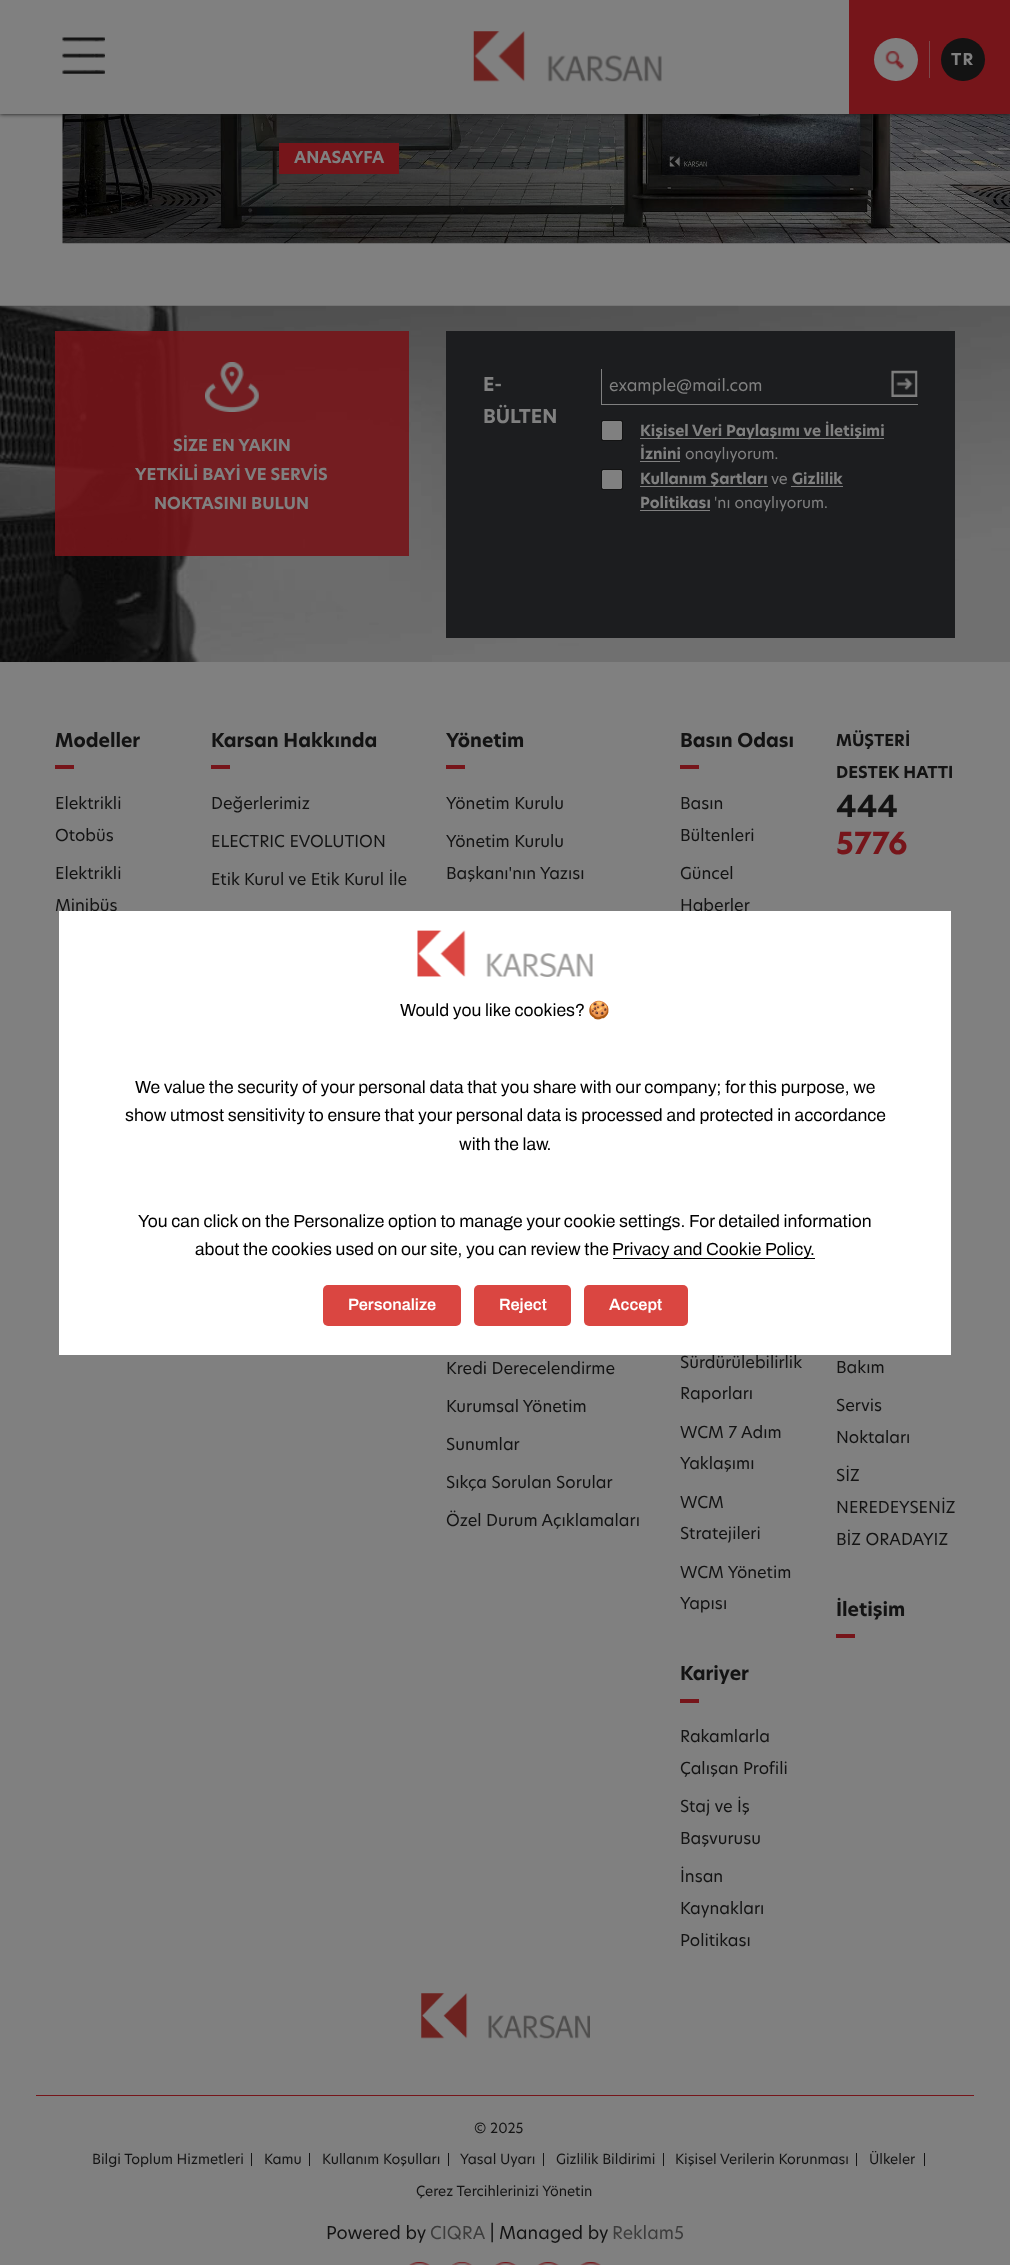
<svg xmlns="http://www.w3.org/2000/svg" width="1010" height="2265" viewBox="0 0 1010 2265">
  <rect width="100%" height="100%" fill="#808080"/>
  <image x="62" y="114" width="948" height="130" href="img/4.png"/>
  <path d="M0 0h1010v114H0z" fill="#131313" filter="blur(2px)"/>
  <path d="M0 0h849v114H0z" fill="#808080"/>
  <image x="62" y="37" width="43" height="37" href="img/1.png"/>
  <image x="473" y="31" width="189" height="51" href="img/2.png"/>
  <path d="M849 0h161v114H849z" fill="#76151a"/>
  <rect x="874" y="38" width="44" height="43" rx="21.5" fill="#808080"/>
  <image x="885" y="51" width="19" height="19" href="img/3.png"/>
  <path d="M929 41h1v37H929z" fill="#7b4b4d"/>
  <rect x="941" y="38" width="44" height="43" rx="21.5" fill="#131313"/>
  <path d="M279 143h120v31H279z" fill="#76151a"/>
  <image x="0" y="305" width="1010" height="357" href="img/5.png"/>
  <path d="M55 331h354v225H55z" fill="#76151ae6"/>
  <image x="205" y="362" width="54" height="50" href="img/6.png"/>
  <path d="M446 331h509v307H446z" fill="#1c1d1f"/>
  <path d="M601 404h317v1H601z" fill="#808080"/>
  <path d="M601 369h1v36H601z" fill="#808080"/>
  <image x="891" y="370" width="27" height="27" href="img/7.png"/>
  <path d="M601.5 420.5h21v20H601.5z" fill="#808080" stroke="#131313"/>
  <rect x="601.5" y="420.5" width="21" height="20" rx="2" fill="none" stroke="#131313"/>
  <path d="M640 438h244v1H640z" fill="#808080"/>
  <path d="M640 461h40v1H640z" fill="#808080"/>
  <path d="M601.5 469.5h21v20H601.5z" fill="#808080" stroke="#131313"/>
  <rect x="601.5" y="469.5" width="21" height="20" rx="2" fill="none" stroke="#131313"/>
  <path d="M640 486h128v1H640z" fill="#808080"/>
  <path d="M791 486h52v1H791z" fill="#808080"/>
  <path d="M640 510h70v1H640z" fill="#808080"/>
  <path d="M55 765h19v4H55z" fill="#76151a"/>
  <path d="M211 765h19v4H211z" fill="#76151a"/>
  <path d="M446 765h19v4H446z" fill="#76151a"/>
  <path d="M680 765h19v4H680z" fill="#76151a"/>
  <path d="M680 1699h19v4H680z" fill="#76151a"/>
  <path d="M836 1634h19v4H836z" fill="#76151a"/>
  <image x="421" y="1993" width="169" height="46" href="img/8.png"/>
  <path d="M36 2095h938v1H36z" fill="#76151a"/>
  <path d="M251 2153h1v13H251z" fill="#131313"/>
  <path d="M309 2153h1v13H309z" fill="#131313"/>
  <path d="M448 2153h1v13H448z" fill="#131313"/>
  <path d="M543 2153h1v13H543z" fill="#131313"/>
  <path d="M663 2153h1v13H663z" fill="#131313"/>
  <path d="M856 2153h1v13H856z" fill="#131313"/>
  <path d="M924 2153h1v13H924z" fill="#131313"/>
  <image x="409" y="2262" width="21" height="3" href="img/9.png"/>
  <image x="452" y="2262" width="20" height="3" href="img/10.png"/>
  <image x="495" y="2262" width="22" height="3" href="img/11.png"/>
  <image x="537" y="2262" width="22" height="3" href="img/12.png"/>
  <image x="580" y="2262" width="21" height="3" href="img/13.png"/>
  <text x="951" y="65" font-family="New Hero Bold" font-size="16.25" font-weight="bold" letter-spacing="1" fill="#808080">TR</text>
  <g font-family="New Hero Bold" font-size="16.25" font-weight="bold" fill="#808080">
    <text x="294" y="163">ANASAYFA</text>
    <text x="173" y="451">SİZE EN YAKIN</text>
    <text x="135" y="480">YETKİLİ BAYİ VE SERVİS</text>
    <text x="154" y="509">NOKTASINI BULUN</text>
  </g>
  <g font-family="New Hero Bold" font-size="18.75" font-weight="bold" fill="#808080">
    <text x="483" y="391">E-</text>
    <text x="483" y="423">BÜLTEN</text>
  </g>
  <text x="609" y="391" font-family="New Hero" font-size="16.25" fill="#808080">example@mail.com</text>
  <g font-family="New Hero Bold" font-size="15" font-weight="bold" fill="#808080">
    <text x="640" y="436">Kişisel Veri Paylaşımı ve İletişimi</text>
    <text x="640" y="459">İznini</text>
  </g>
  <text x="685" y="459" font-family="New Hero" font-size="15" fill="#808080">onaylıyorum.</text>
  <text x="640" y="484" font-family="New Hero Bold" font-size="15" font-weight="bold" fill="#808080">Kullanım Şartları</text>
  <text x="771" y="484" font-family="New Hero" font-size="15" fill="#808080">ve</text>
  <g font-family="New Hero Bold" font-size="15" font-weight="bold" fill="#808080">
    <text x="792" y="484">Gizlilik</text>
    <text x="640" y="508">Politikası</text>
  </g>
  <text x="714" y="508" font-family="New Hero" font-size="15" fill="#808080">'nı onaylıyorum.</text>
  <text x="55" y="747" font-family="New Hero Bold" font-size="18.75" font-weight="bold" fill="#131313">Modeller</text>
  <g font-family="New Hero" font-size="16.25" fill="#131313">
    <text x="55" y="809">Elektrikli</text>
    <text x="55" y="841">Otobüs</text>
    <text x="55" y="879">Elektrikli</text>
    <text x="55" y="911">Minibüs</text>
  </g>
  <text x="211" y="747" font-family="New Hero Bold" font-size="18.75" font-weight="bold" fill="#131313">Karsan Hakkında</text>
  <g font-family="New Hero" font-size="16.25" fill="#131313">
    <text x="211" y="809">Değerlerimiz</text>
    <text x="211" y="847">ELECTRIC EVOLUTION</text>
    <text x="211" y="885">Etik Kurul ve Etik Kurul İle</text>
  </g>
  <text x="446" y="747" font-family="New Hero Bold" font-size="18.75" font-weight="bold" fill="#131313">Yönetim</text>
  <g font-family="New Hero" font-size="16.25" fill="#131313">
    <text x="446" y="809">Yönetim Kurulu</text>
    <text x="446" y="847">Yönetim Kurulu</text>
    <text x="446" y="879">Başkanı'nın Yazısı</text>
    <text x="446" y="1374">Kredi Derecelendirme</text>
    <text x="446" y="1412">Kurumsal Yönetim</text>
    <text x="446" y="1450">Sunumlar</text>
    <text x="446" y="1488">Sıkça Sorulan Sorular</text>
    <text x="446" y="1526">Özel Durum Açıklamaları</text>
  </g>
  <text x="680" y="747" font-family="New Hero Bold" font-size="18.75" font-weight="bold" fill="#131313">Basın Odası</text>
  <g font-family="New Hero" font-size="16.25" fill="#131313">
    <text x="680" y="809">Basın</text>
    <text x="680" y="841">Bültenleri</text>
    <text x="680" y="879">Güncel</text>
    <text x="680" y="911">Haberler</text>
    <text x="680" y="1368">Sürdürülebilirlik</text>
    <text x="680" y="1399">Raporları</text>
    <text x="680" y="1438">WCM 7 Adım</text>
    <text x="680" y="1469">Yaklaşımı</text>
    <text x="680" y="1508">WCM</text>
    <text x="680" y="1539">Stratejileri</text>
    <text x="680" y="1578">WCM Yönetim</text>
    <text x="680" y="1609">Yapısı</text>
  </g>
  <text x="680" y="1680" font-family="New Hero Bold" font-size="18.75" font-weight="bold" fill="#131313">Kariyer</text>
  <g font-family="New Hero" font-size="16.25" fill="#131313">
    <text x="680" y="1742">Rakamlarla</text>
    <text x="680" y="1774">Çalışan Profili</text>
    <text x="680" y="1812">Staj ve İş</text>
    <text x="680" y="1844">Başvurusu</text>
    <text x="680" y="1882">İnsan</text>
    <text x="680" y="1914">Kaynakları</text>
    <text x="680" y="1946">Politikası</text>
  </g>
  <g font-family="New Hero Bold" font-size="16.25" font-weight="bold" fill="#131313">
    <text x="836" y="746">MÜŞTERİ</text>
    <text x="836" y="778">DESTEK HATTI</text>
  </g>
  <text x="836" y="817" font-family="New Hero Bold" font-size="30" font-weight="bold" fill="#131313">444</text>
  <text x="836" y="854" font-family="New Hero Bold" font-size="30" font-weight="bold" fill="#76151a">5776</text>
  <g font-family="New Hero" font-size="16.25" fill="#131313">
    <text x="836" y="1373">Bakım</text>
    <text x="836" y="1411">Servis</text>
    <text x="836" y="1443">Noktaları</text>
    <text x="836" y="1481">SİZ</text>
    <text x="836" y="1513">NEREDEYSENİZ</text>
    <text x="836" y="1545">BİZ ORADAYIZ</text>
  </g>
  <text x="836" y="1616" font-family="New Hero Bold" font-size="18.75" font-weight="bold" fill="#131313">İletişim</text>
  <g font-family="New Hero" font-size="13.75" fill="#131313">
    <text x="474" y="2133">© 2025</text>
    <text x="92" y="2164">Bilgi Toplum Hizmetleri</text>
    <text x="264" y="2164">Kamu</text>
    <text x="322" y="2164">Kullanım Koşulları</text>
    <text x="460" y="2164">Yasal Uyarı</text>
    <text x="556" y="2164">Gizlilik Bildirimi</text>
    <text x="675" y="2164">Kişisel Verilerin Korunması</text>
    <text x="869" y="2164">Ülkeler</text>
    <text x="416" y="2196">Çerez Tercihlerinizi Yönetin</text>
  </g>
  <text x="326" y="2239" font-family="New Hero" font-size="17.5" fill="#131313">Powered by</text>
  <text x="430" y="2239" font-family="New Hero" font-size="17.5" fill="#3c3c3c">CIQRA</text>
  <text x="490" y="2239" font-family="New Hero" font-size="17.5" fill="#131313">| Managed by</text>
  <text x="612" y="2239" font-family="New Hero" font-size="17.5" fill="#3c3c3c">Reklam5</text>
  <path d="M59 911h892v444H59z" fill="#fff"/>
  <image x="417" y="930" width="176" height="47" href="img/14.png"/>
  <text x="400" y="1016" font-family="Archivo" font-size="17.5" fill="#000">Would you like cookies?</text>
  <text x="588" y="1016" font-family="Noto Color Emoji" font-size="17.5" fill="#000">🍪</text>
  <g font-family="Archivo" font-size="17.5" fill="#000">
    <text x="135" y="1093">We value the security of your personal data that you share with our company; for this purpose, we</text>
    <text x="125" y="1121">show utmost sensitivity to ensure that your personal data is processed and protected in accordance</text>
    <text x="459" y="1150">with the law.</text>
    <text x="138" y="1227">You can click on the Personalize option to manage your cookie settings. For detailed information</text>
    <text x="195" y="1255">about the cookies used on our site, you can review the</text>
  </g>
  <path d="M613 1258h202v1H613z" fill="#000"/>
  <text x="612" y="1255" font-family="Archivo" font-size="17.5" fill="#000">Privacy and Cookie Policy.</text>
  <rect x="323" y="1285" width="138" height="41" rx="5" fill="#da4641"/>
  <text x="348" y="1310" font-family="Archivo" font-size="16.25" font-weight="600" fill="#fff">Personalize</text>
  <rect x="474" y="1285" width="97" height="41" rx="5" fill="#da4641"/>
  <text x="499" y="1310" font-family="Archivo" font-size="16.25" font-weight="600" fill="#fff">Reject</text>
  <rect x="584" y="1285" width="104" height="41" rx="5" fill="#da4641"/>
  <text x="609" y="1310" font-family="Archivo" font-size="16.25" font-weight="600" fill="#fff">Accept</text>
</svg>
